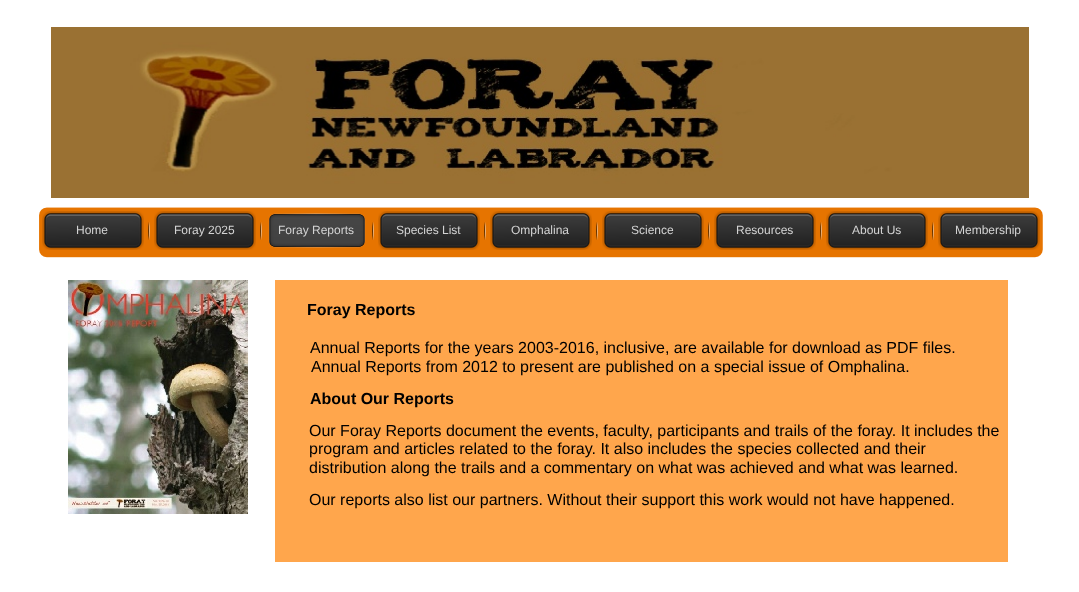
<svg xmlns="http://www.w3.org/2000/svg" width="1079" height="592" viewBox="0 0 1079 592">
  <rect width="100%" height="100%" fill="#fff"/>
  <image x="51" y="27" width="978" height="171" href="img/1.png"/>
  <image x="39" y="207" width="1004" height="51" href="img/2.png"/>
  <image x="42" y="211" width="102" height="39" href="img/3.png"/>
  <image x="154" y="211" width="102" height="39" href="img/3.png"/>
  <image x="268" y="213" width="98" height="35" href="img/4.png"/>
  <image x="378" y="211" width="102" height="39" href="img/3.png"/>
  <image x="490" y="211" width="102" height="39" href="img/3.png"/>
  <image x="602" y="211" width="102" height="39" href="img/3.png"/>
  <image x="714" y="211" width="102" height="39" href="img/3.png"/>
  <image x="826" y="211" width="102" height="39" href="img/3.png"/>
  <image x="938" y="211" width="102" height="39" href="img/3.png"/>
  <image x="68" y="280" width="180" height="234" href="img/5.png"/>
  <path d="M275 280h733v282H275z" fill="#ffa64c"/>
  <g font-family="Liberation Sans" font-size="12" fill="#d4d4d4">
    <text x="76" y="234">Home</text>
    <text x="174" y="234">Foray 2025</text>
    <text x="278" y="234">Foray Reports</text>
    <text x="396" y="234">Species List</text>
    <text x="511" y="234">Omphalina</text>
    <text x="631" y="234">Science</text>
    <text x="736" y="234">Resources</text>
    <text x="852" y="234">About Us</text>
    <text x="955" y="234">Membership</text>
  </g>
  <text x="307" y="315" font-family="Liberation Sans" font-size="16" font-weight="bold" fill="#000">Foray Reports</text>
  <g font-family="Liberation Sans" font-size="16" fill="#000">
    <text x="310" y="353">Annual Reports for the years 2003-2016, inclusive, are available for download as PDF files.</text>
    <text x="311" y="372">Annual Reports from 2012 to present are published on a special issue of Omphalina.</text>
  </g>
  <text x="310" y="404" font-family="Liberation Sans" font-size="16" font-weight="bold" fill="#000">About Our Reports</text>
  <g font-family="Liberation Sans" font-size="16" fill="#000">
    <text x="309" y="436">Our Foray Reports document the events, faculty, participants and trails of the foray. It includes the</text>
    <text x="309" y="454">program and articles related to the foray. It also includes the species collected and their</text>
    <text x="309" y="473">distribution along the trails and a commentary on what was achieved and what was learned.</text>
    <text x="309" y="505">Our reports also list our partners. Without their support this work would not have happened.</text>
  </g>
</svg>
